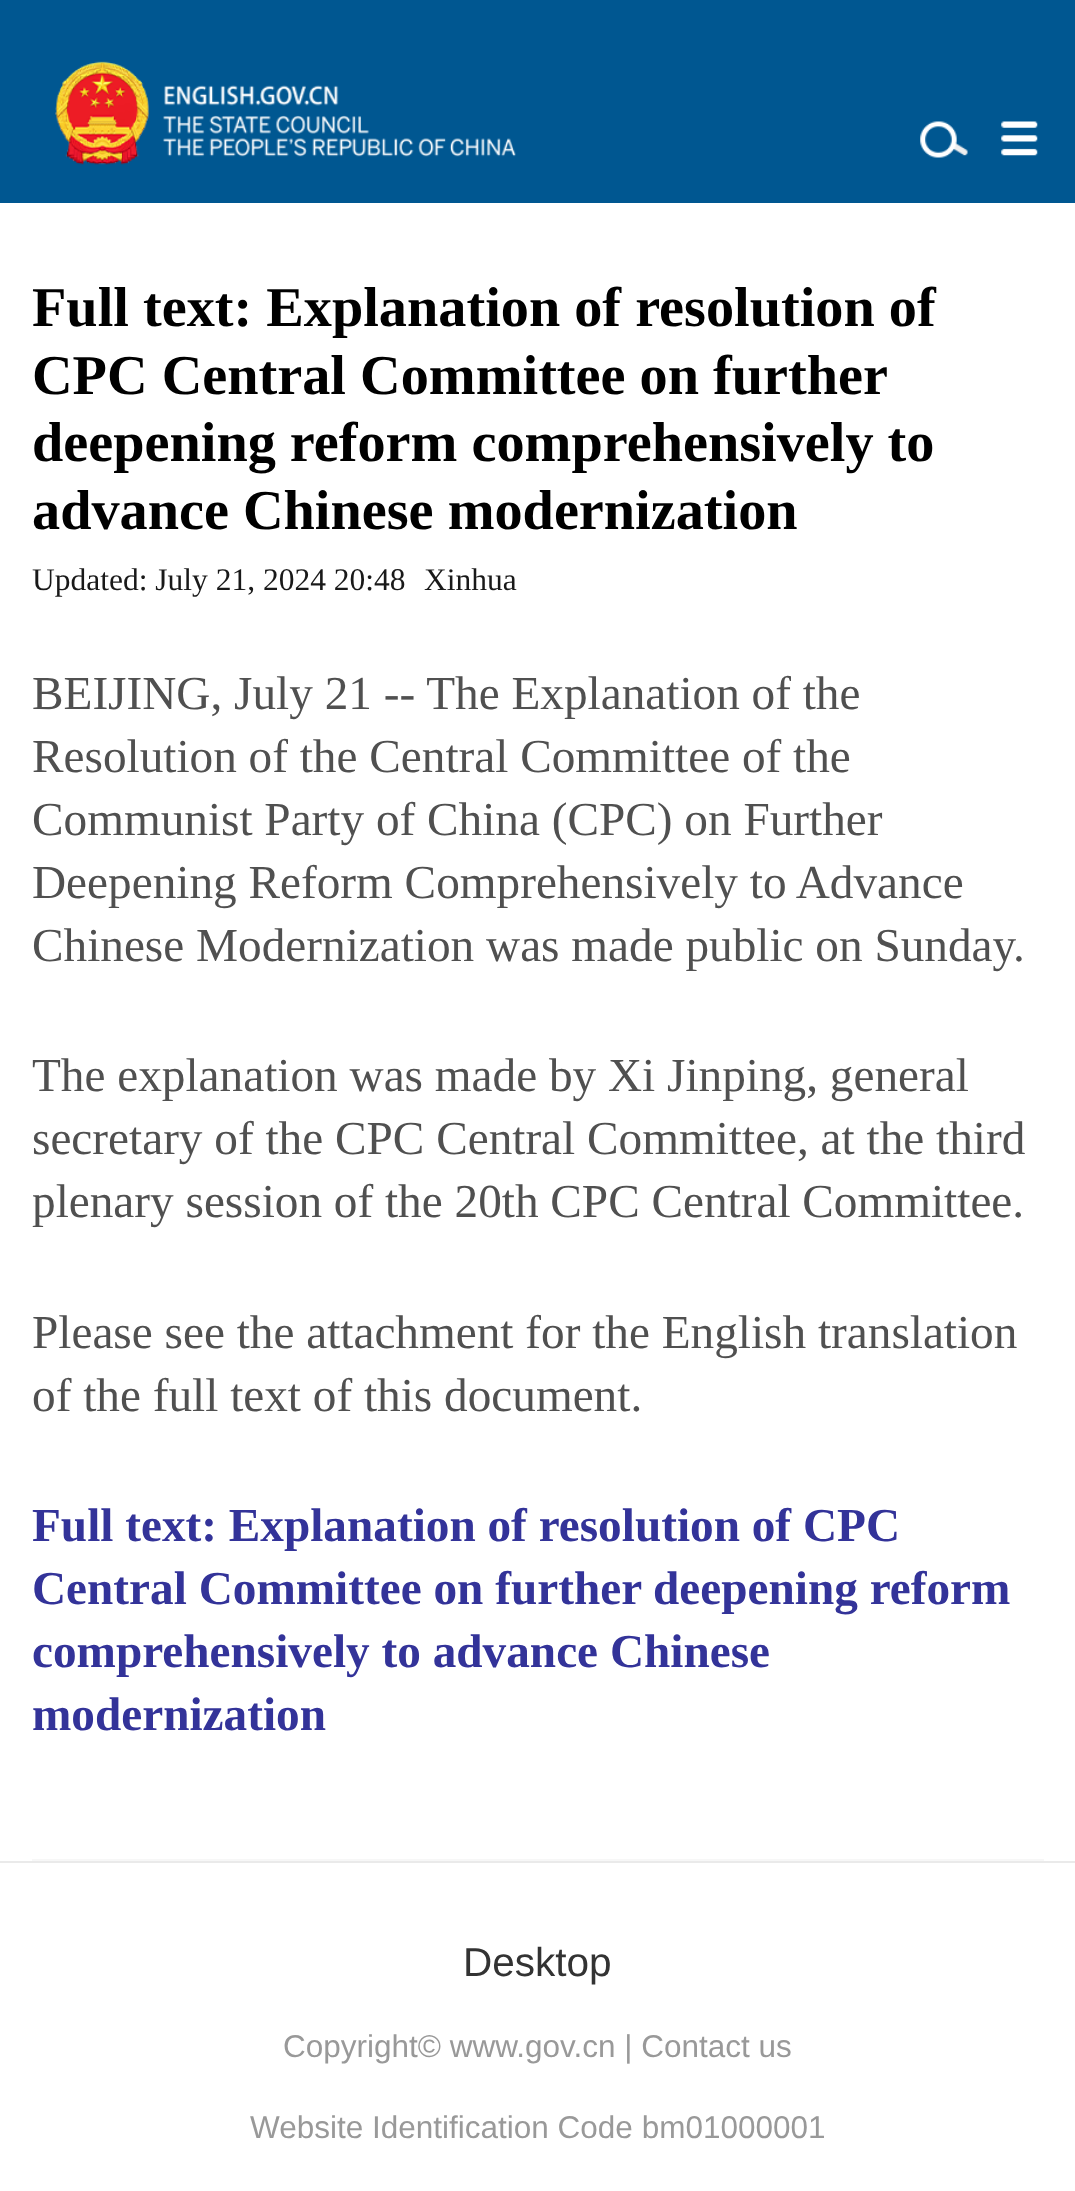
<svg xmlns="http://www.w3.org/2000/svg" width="1075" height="2191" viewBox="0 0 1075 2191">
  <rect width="100%" height="100%" fill="#fff"/>
  <path d="M0 0h1075v203H0z" fill="#005791"/>
  <image x="55" y="61" width="461" height="104" href="img/1.png"/>
  <image x="920" y="121" width="48" height="37" href="img/2.png"/>
  <image x="1001" y="121" width="37" height="35" href="img/3.png"/>
  <path d="M32 1859h1012v2H32z" fill="#f7f7f7"/>
  <path d="M0 1861h1075v2H0z" fill="#eaeaea"/>
  <g font-family="Liberation Serif" font-size="56.25" font-weight="bold" fill="#000">
    <text x="32" y="326">Full text: Explanation of resolution of</text>
    <text x="32" y="394">CPC Central Committee on further</text>
    <text x="32" y="461">deepening reform comprehensively to</text>
    <text x="32" y="529">advance Chinese modernization</text>
  </g>
  <g font-family="Liberation Serif" font-size="31.5" fill="#191919">
    <text x="32" y="590">Updated: July 21, 2024 20:48</text>
    <text x="424" y="590">Xinhua</text>
  </g>
  <g font-family="Liberation Serif" font-size="47.25" fill="#505050">
    <text x="32" y="709">BEIJING, July 21 -- The Explanation of the</text>
    <text x="32" y="772">Resolution of the Central Committee of the</text>
    <text x="32" y="835">Communist Party of China (CPC) on Further</text>
    <text x="32" y="898">Deepening Reform Comprehensively to Advance</text>
    <text x="32" y="961">Chinese Modernization was made public on Sunday.</text>
    <text x="32" y="1091">The explanation was made by Xi Jinping, general</text>
    <text x="32" y="1154">secretary of the CPC Central Committee, at the third</text>
    <text x="32" y="1217">plenary session of the 20th CPC Central Committee.</text>
    <text x="32" y="1348">Please see the attachment for the English translation</text>
    <text x="32" y="1411">of the full text of this document.</text>
  </g>
  <g font-family="Liberation Serif" font-size="47.25" font-weight="bold" fill="#339">
    <text x="32" y="1541">Full text: Explanation of resolution of CPC</text>
    <text x="32" y="1604">Central Committee on further deepening reform</text>
    <text x="32" y="1667">comprehensively to advance Chinese</text>
    <text x="32" y="1730">modernization</text>
  </g>
  <text x="463" y="1976" font-family="Liberation Sans" font-size="40.5" fill="#333">Desktop</text>
  <g font-family="Liberation Sans" font-size="31.5" fill="#999">
    <text x="283" y="2057">Copyright© www.gov.cn | Contact us</text>
    <text x="250" y="2138">Website Identification Code bm01000001</text>
  </g>
</svg>
